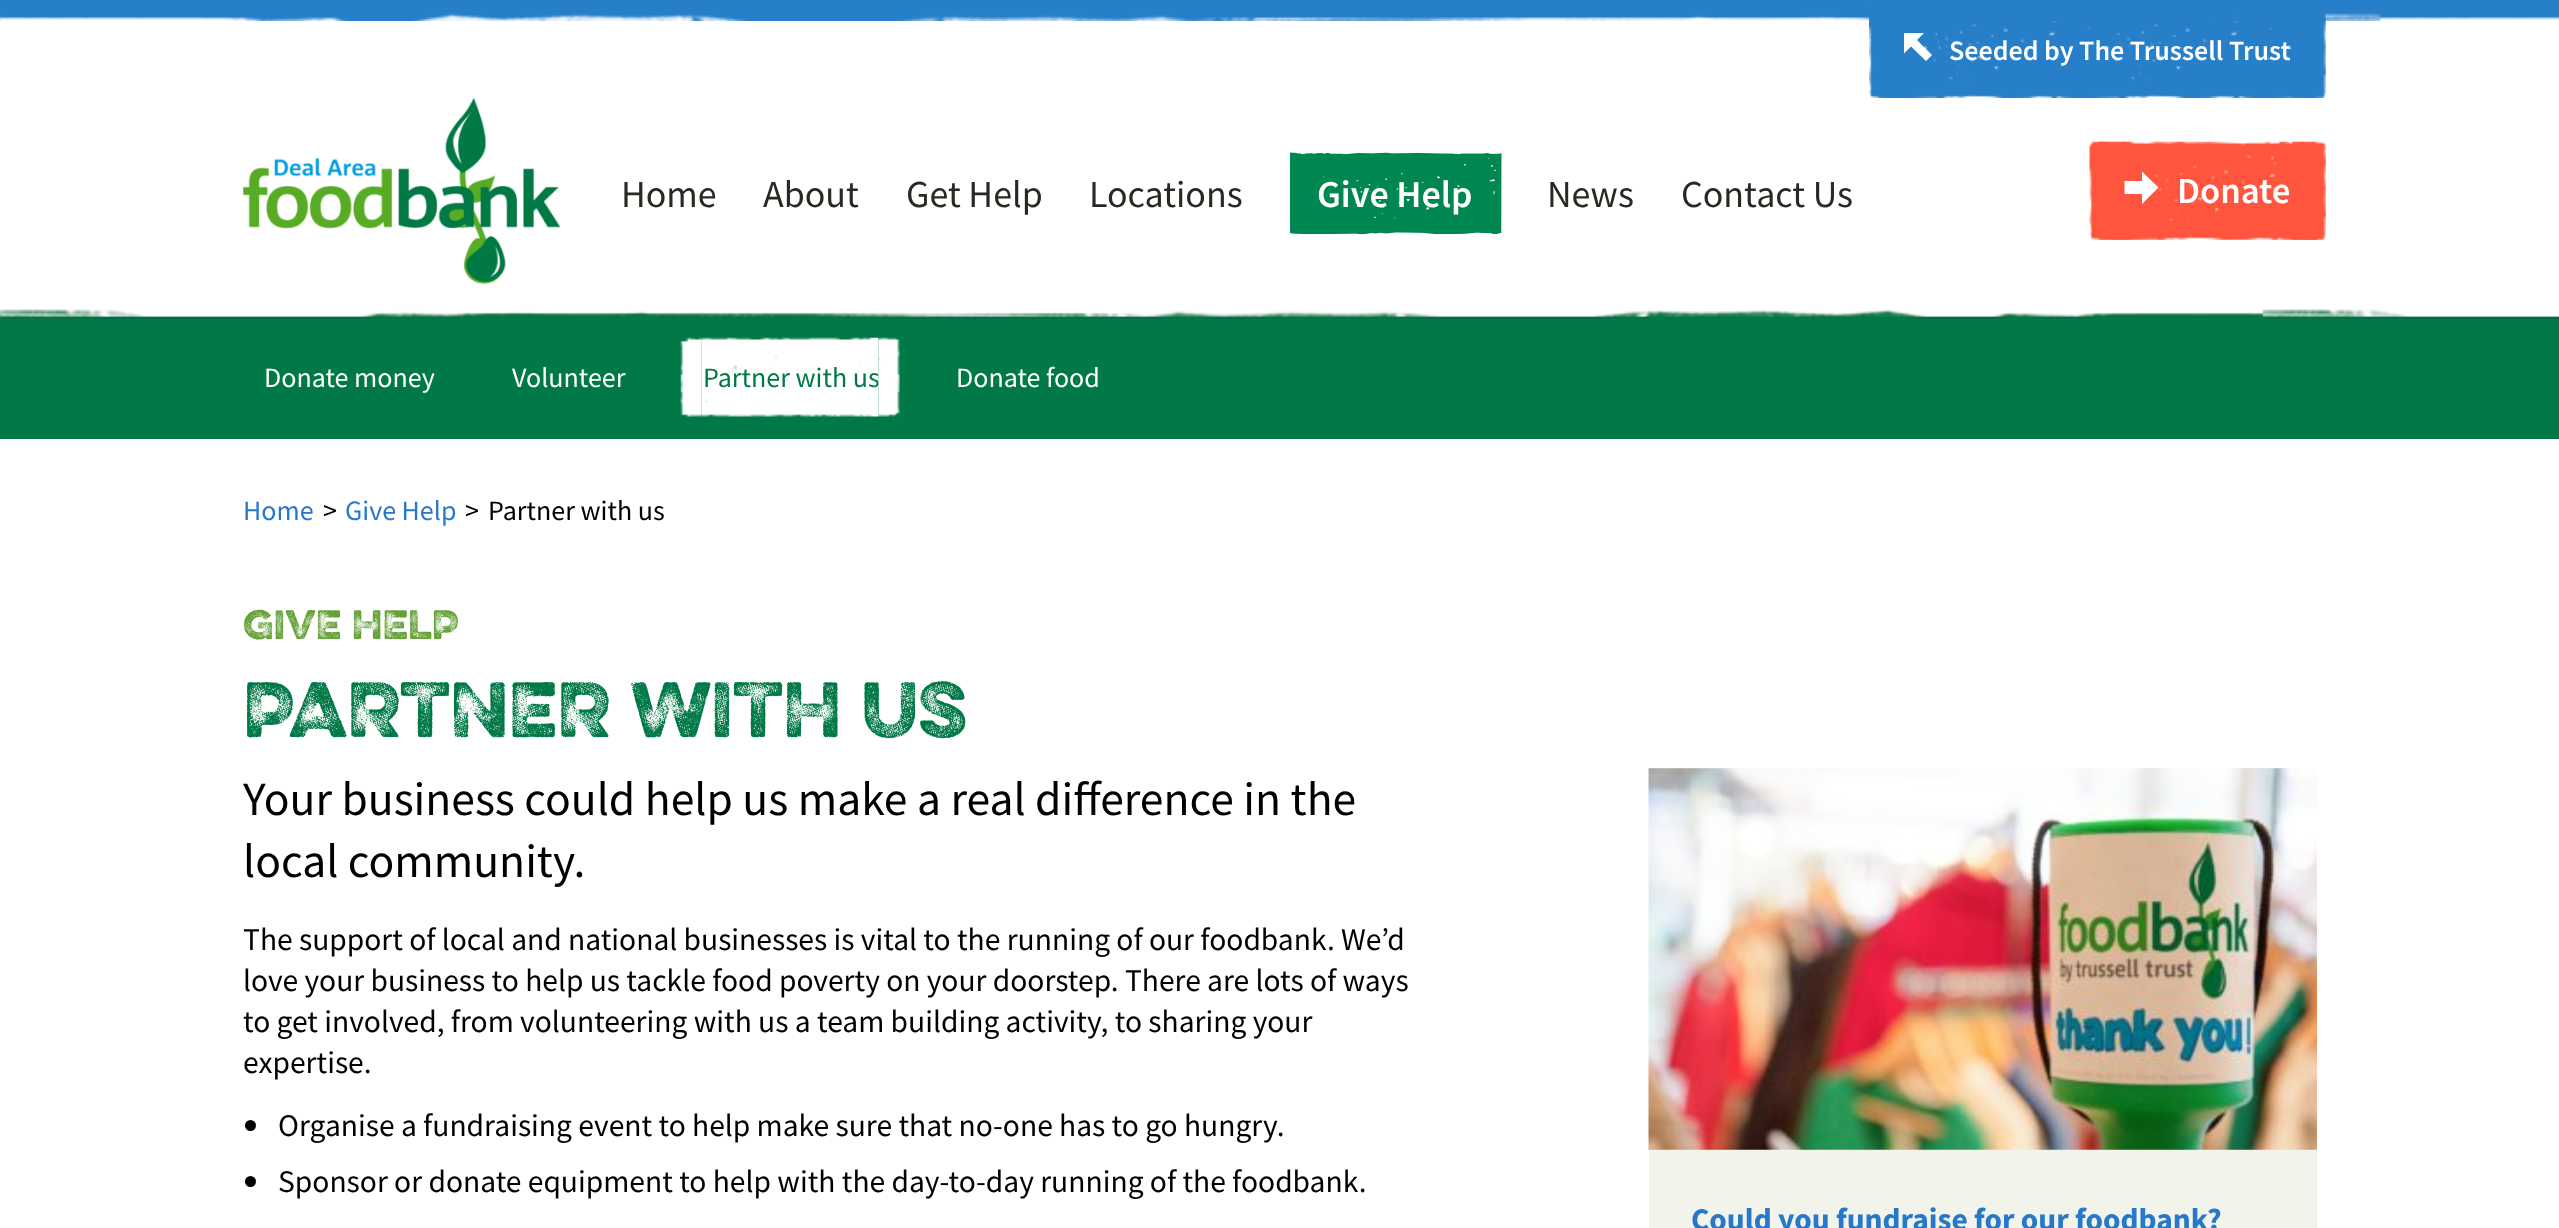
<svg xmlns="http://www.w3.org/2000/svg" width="2559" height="1228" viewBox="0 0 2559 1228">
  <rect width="100%" height="100%" fill="#fff"/>
  <image x="0" y="0" width="2559" height="21" href="img/1.png"/>
  <image x="1877" y="13" width="440" height="85" href="img/2.png"/>
  <image x="1869" y="2" width="39" height="96" href="img/3.png"/>
  <path d="M1904 53.5L1911 46.5L1926 61L1932 55L1917 40L1924 33H1904Z" fill="#fff"/>
  <image x="2292" y="13" width="34" height="85" href="img/4.png"/>
  <image x="243" y="98" width="317" height="186" href="img/5.png"/>
  <image x="1290" y="152" width="212" height="83" href="img/6.png"/>
  <image x="2098" y="141" width="219" height="99" href="img/7.png"/>
  <image x="2089" y="141" width="41" height="99" href="img/8.png"/>
  <path d="M2158.5 187.5L2142 171.5V181H2124.5V194H2142V204Z" fill="#fff"/>
  <image x="2292" y="141" width="34" height="99" href="img/9.png"/>
  <path d="M0 309h2559v130H0z" fill="#007947"/>
  <image x="0" y="291" width="2559" height="28" href="img/10.png"/>
  <image x="701" y="337" width="178" height="80" href="img/11.png"/>
  <image x="680" y="337" width="22" height="80" href="img/12.png"/>
  <circle cx="250.5" cy="1125.5" r="5.5" fill="#000"/>
  <circle cx="250.5" cy="1181.5" r="5.5" fill="#000"/>
  <path d="M1649 768h668v460H1649z" fill="#f2f3eb"/>
  <image x="1648" y="768" width="669" height="382" href="img/14.png"/>
  <text x="1949" y="60" font-family="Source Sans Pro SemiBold" font-size="28" font-weight="600" fill="#fff">Seeded by The Trussell Trust</text>
  <g font-family="Source Sans Pro" font-size="38" fill="#282922">
    <text x="621" y="207">Home</text>
    <text x="763" y="207">About</text>
    <text x="906" y="207">Get Help</text>
    <text x="1089" y="207">Locations</text>
  </g>
  <text x="1317" y="207" font-family="Source Sans Pro SemiBold" font-size="38" font-weight="600" fill="#fff">Give Help</text>
  <g font-family="Source Sans Pro" font-size="38" fill="#282922">
    <text x="1547" y="207">News</text>
    <text x="1681" y="207">Contact Us</text>
  </g>
  <text x="2177" y="203" font-family="Source Sans Pro SemiBold" font-size="36.75" font-weight="600" fill="#fff">Donate</text>
  <g font-family="Source Sans Pro" font-size="28" fill="#fff">
    <text x="264" y="387">Donate money</text>
    <text x="512" y="387">Volunteer</text>
  </g>
  <text x="703" y="387" font-family="Source Sans Pro" font-size="28" fill="#007947">Partner with us</text>
  <image x="878" y="337" width="22" height="80" href="img/13.png"/>
  <text x="956" y="387" font-family="Source Sans Pro" font-size="28" fill="#fff">Donate food</text>
  <text x="243" y="520" font-family="Source Sans Pro" font-size="28" fill="#2678ca">Home</text>
  <text x="323" y="520" font-family="Source Sans Pro" font-size="28" fill="#000">&gt;</text>
  <text x="345" y="520" font-family="Source Sans Pro" font-size="28" fill="#2678ca">Give Help</text>
  <g font-family="Source Sans Pro" font-size="28" fill="#000">
    <text x="465" y="520">&gt;</text>
    <text x="488" y="520">Partner with us</text>
  </g>
  <text x="243" y="639" font-family="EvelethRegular" font-size="36.75" font-weight="300" fill="#63a036">GIVE HELP</text>
  <text x="243" y="737" font-family="EvelethRegular" font-size="70" font-weight="300" fill="#007947">PARTNER WITH US</text>
  <g font-family="Source Sans Pro" font-size="47.6" fill="#000">
    <text x="243" y="815">Your business could help us make a real difference in the</text>
    <text x="243" y="877">local community.</text>
  </g>
  <g font-family="Source Sans Pro" font-size="31.5" fill="#000">
    <text x="243" y="950">The support of local and national businesses is vital to the running of our foodbank. We’d</text>
    <text x="243" y="991">love your business to help us tackle food poverty on your doorstep. There are lots of ways</text>
    <text x="243" y="1032">to get involved, from volunteering with us a team building activity, to sharing your</text>
    <text x="243" y="1073">expertise.</text>
    <text x="278" y="1136">Organise a fundraising event to help make sure that no-one has to go hungry.</text>
    <text x="278" y="1192">Sponsor or donate equipment to help with the day-to-day running of the foodbank.</text>
  </g>
  <text x="1691" y="1230" font-family="Source Sans Pro" font-size="31.5" font-weight="bold" fill="#2678ca">Could you fundraise for our foodbank?</text>
</svg>
